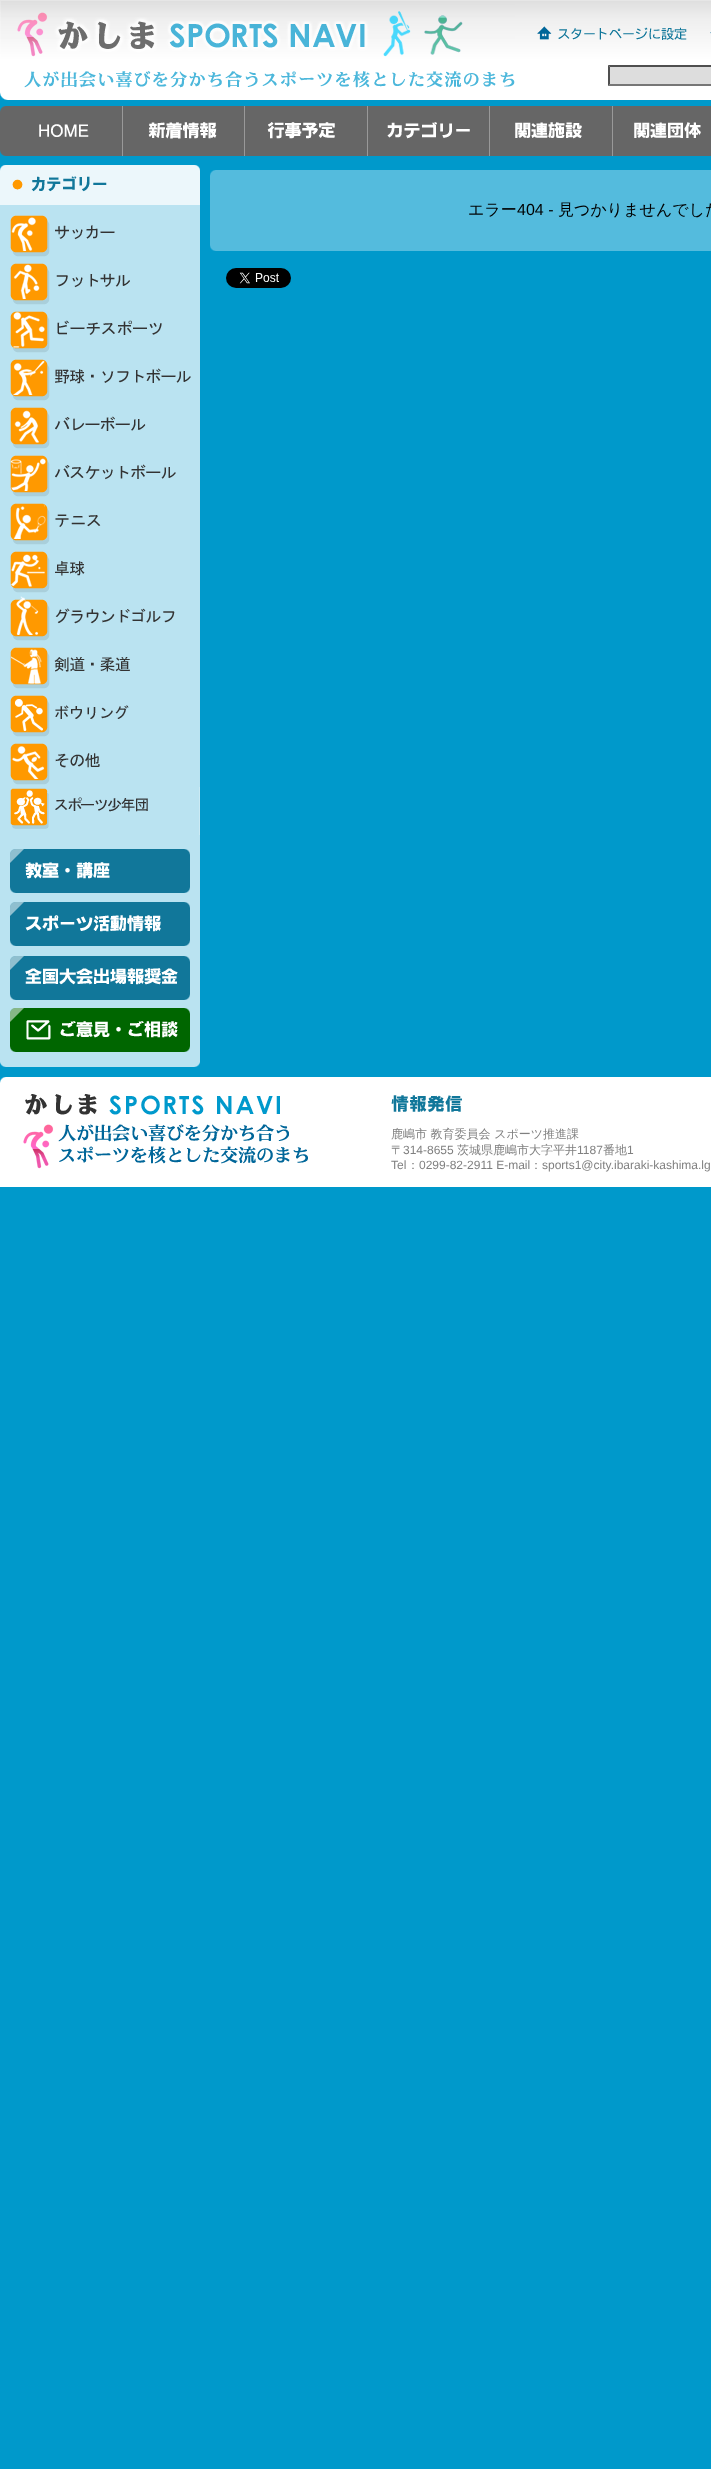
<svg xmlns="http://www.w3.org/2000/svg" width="711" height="2469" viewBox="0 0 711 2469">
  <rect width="100%" height="100%" fill="#0099cb"/>
  <image x="0" y="0" width="711" height="93" href="img/1.png"/>
  <image x="0" y="1" width="515" height="92" href="img/2.png"/>
  <image x="537" y="26" width="150" height="14" href="img/3.png"/>
  <image x="710" y="32" width="1" height="2" href="img/4.png"/>
  <path d="M608 65h103v21H608z" fill="#ddd"/>
  <path d="M608 65H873L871 67H610Z" fill="#4f4f4f"/>
  <path d="M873 86H608L610 84H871Z" fill="#767676"/>
  <path d="M608 86V65L610 67V84Z" fill="#4f4f4f"/>
  <image x="0" y="93" width="711" height="7" href="img/5.png"/>
  <image x="0" y="106" width="123" height="50" href="img/6.png"/>
  <image x="123" y="106" width="122" height="50" href="img/7.png"/>
  <image x="245" y="106" width="123" height="50" href="img/8.png"/>
  <image x="368" y="106" width="122" height="50" href="img/9.png"/>
  <image x="490" y="106" width="123" height="50" href="img/10.png"/>
  <image x="613" y="106" width="98" height="50" href="img/11.png"/>
  <path d="M0 205h200v856H0z" fill="#bae3f1"/>
  <image x="0" y="165" width="200" height="40" href="img/12.png"/>
  <image x="10" y="215" width="105" height="42" href="img/13.png"/>
  <image x="10" y="263" width="120" height="42" href="img/14.png"/>
  <image x="10" y="311" width="152" height="42" href="img/15.png"/>
  <image x="10" y="359" width="181" height="42" href="img/16.png"/>
  <image x="10" y="407" width="136" height="42" href="img/17.png"/>
  <image x="10" y="455" width="166" height="42" href="img/18.png"/>
  <image x="10" y="503" width="91" height="42" href="img/19.png"/>
  <image x="10" y="551" width="75" height="48" href="img/20.png"/>
  <image x="10" y="599" width="165" height="42" href="img/21.png"/>
  <image x="10" y="647" width="120" height="42" href="img/22.png"/>
  <image x="10" y="695" width="119" height="42" href="img/23.png"/>
  <image x="10" y="743" width="90" height="42" href="img/24.png"/>
  <image x="10" y="787" width="190" height="48" href="img/25.png"/>
  <image x="10" y="849" width="180" height="44" href="img/26.png"/>
  <image x="10" y="902" width="180" height="44" href="img/27.png"/>
  <image x="10" y="956" width="180" height="44" href="img/28.png"/>
  <image x="10" y="1008" width="180" height="44" href="img/29.png"/>
  <image x="210" y="170" width="501" height="18" href="img/30.png"/>
  <path d="M210 188h501v45H210z" fill="#54bbdd"/>
  <image x="210" y="233" width="501" height="18" href="img/31.png"/>
  <image x="226" y="268" width="65" height="20" href="img/32.png"/>
  <image x="0" y="1061" width="200" height="6" href="img/33.png"/>
  <path d="M0 1077h711v110H0z" fill="#fff"/>
  <image x="0" y="1077" width="308" height="92" href="img/34.png"/>
  <image x="391" y="1095" width="71" height="17" href="img/35.png"/>
  <text x="468" y="215" font-family="WenQuanYi Zen Hei" font-size="16" font-weight="500" fill="#000">エラー</text>
  <text x="517" y="215" font-family="Liberation Sans" font-size="16" fill="#000">404 -</text>
  <text x="558" y="215" font-family="WenQuanYi Zen Hei" font-size="16" font-weight="500" fill="#000">見つかりませんでした</text>
  <g font-family="WenQuanYi Zen Hei" font-size="12" font-weight="500" fill="#808080">
    <text x="391" y="1138">鹿嶋市 教育委員会 スポーツ推進課</text>
    <text x="391" y="1154">〒</text>
  </g>
  <text x="403" y="1154" font-family="Liberation Sans" font-size="12" fill="#808080">314-8655</text>
  <text x="457" y="1154" font-family="WenQuanYi Zen Hei" font-size="12" font-weight="500" fill="#808080">茨城県鹿嶋市大字平井</text>
  <text x="577" y="1154" font-family="Liberation Sans" font-size="12" fill="#808080">1187</text>
  <text x="603" y="1154" font-family="WenQuanYi Zen Hei" font-size="12" font-weight="500" fill="#808080">番地</text>
  <g font-family="Liberation Sans" font-size="12" fill="#808080">
    <text x="627" y="1154">1</text>
    <text x="391" y="1169">Tel</text>
  </g>
  <text x="407" y="1169" font-family="WenQuanYi Zen Hei" font-size="12" font-weight="500" fill="#808080">：</text>
  <text x="419" y="1169" font-family="Liberation Sans" font-size="12" fill="#808080">0299-82-2911 E-mail</text>
  <text x="530" y="1169" font-family="WenQuanYi Zen Hei" font-size="12" font-weight="500" fill="#808080">：</text>
  <text x="542" y="1169" font-family="Liberation Sans" font-size="12" fill="#808080">sports1@city.ibaraki-kashima.lg</text>
</svg>
